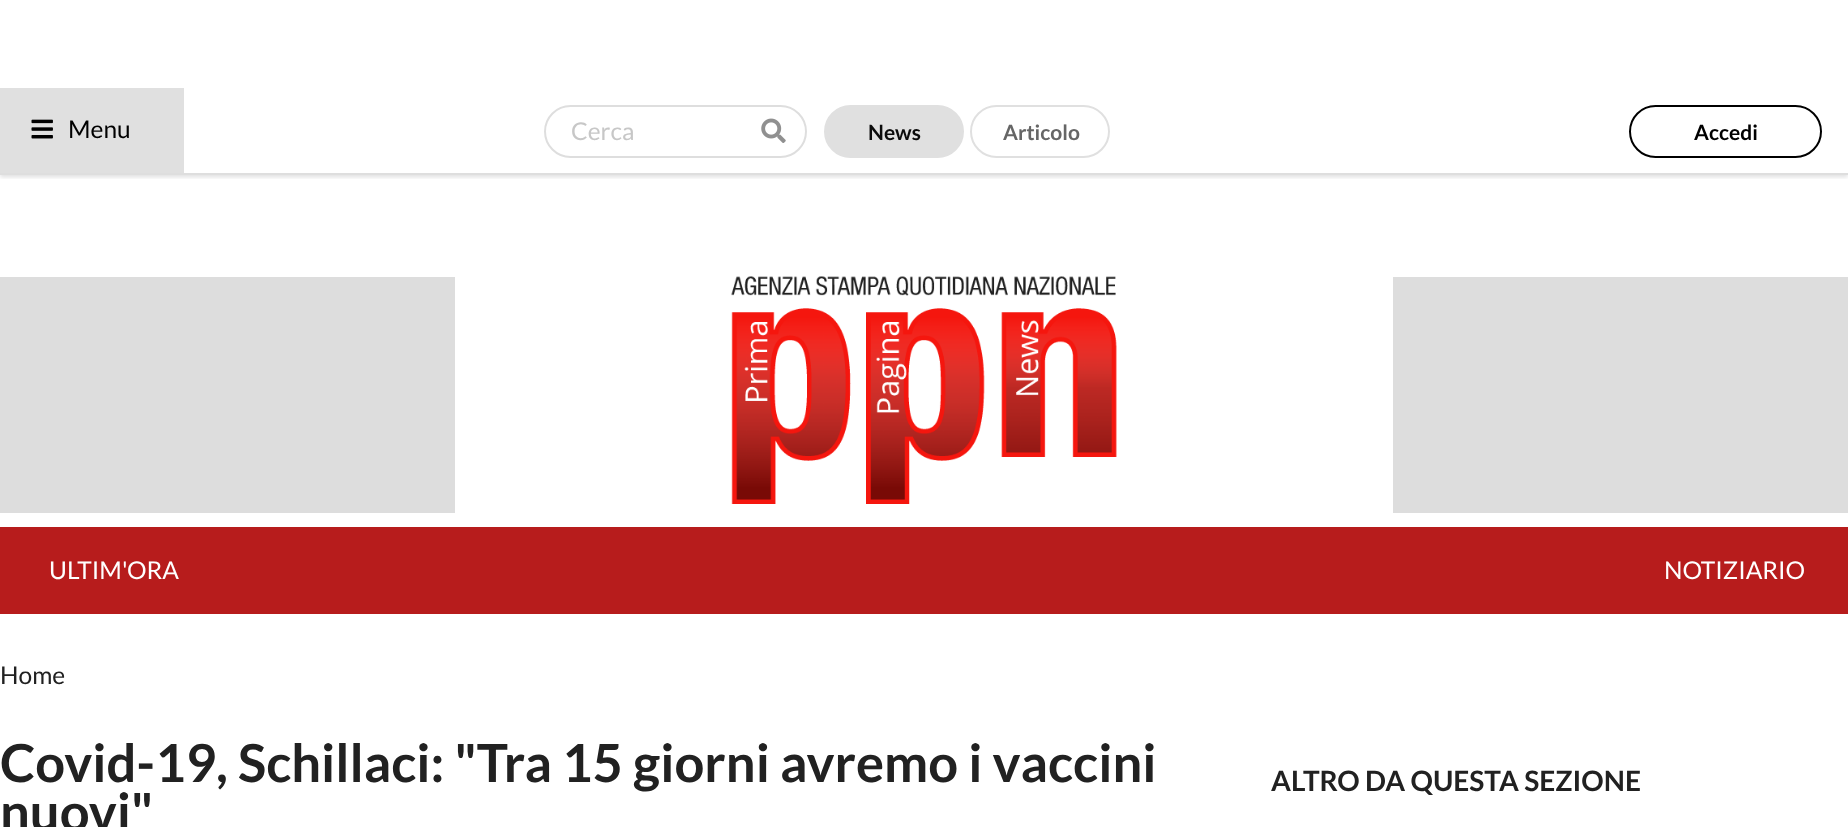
<svg xmlns="http://www.w3.org/2000/svg" width="1848" height="827" viewBox="0 0 1848 827">
  <defs>
    <clipPath id="clip1"><path d="M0 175h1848v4H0z"/></clipPath>
  </defs>
  <rect width="100%" height="100%" fill="#fff"/>
  <g clip-path="url(#clip1)">
    <path d="M0 89h1848v88H0z" fill="#22242626" filter="blur(2px)"/>
  </g>
  <path d="M0 173h1848v2H0z" fill="#dedede"/>
  <path d="M0 88h184v85H0z" fill="#e0e0e0"/>
  <image x="31" y="119" width="22" height="20" href="img/1.png"/>
  <rect x="545" y="106" width="261" height="51" rx="25.5" fill="none" stroke="#dedede" stroke-width="2"/>
  <image x="761" y="118" width="25" height="25" href="img/2.png"/>
  <rect x="825" y="106" width="138" height="51" rx="25.5" fill="#e0e0e0" stroke="#e0e0e0" stroke-width="2"/>
  <rect x="971" y="106" width="138" height="51" rx="25.5" fill="none" stroke="#e0e0e0" stroke-width="2"/>
  <rect x="1630" y="106" width="191" height="51" rx="25.5" fill="none" stroke="#000" stroke-width="2"/>
  <path d="M0 277h455v236H0z" fill="#ddd"/>
  <image x="731" y="276" width="386" height="228" href="img/3.png"/>
  <path d="M1393 277h455v236H1393z" fill="#ddd"/>
  <path d="M0 527h1848v87H0z" fill="#b71c1c"/>
  <text x="68" y="138" font-family="Lato" font-size="24.5" fill="#000">Menu</text>
  <text x="571" y="140" font-family="Lato" font-size="24.5" fill="#c7c7c7">Cerca</text>
  <text x="868" y="140" font-family="Lato" font-size="21" font-weight="bold" fill="#0b0b0b">News</text>
  <text x="1003" y="140" font-family="Lato" font-size="21" font-weight="bold" fill="#666">Articolo</text>
  <text x="1694" y="140" font-family="Lato" font-size="21" font-weight="bold" fill="#000">Accedi</text>
  <g font-family="Lato" font-size="24.5" fill="#fff">
    <text x="49" y="579">ULTIM'ORA</text>
    <text x="1664" y="579">NOTIZIARIO</text>
  </g>
  <text x="0" y="684" font-family="Lato" font-size="24.5" fill="#212121">Home</text>
  <g font-family="Lato" font-size="52.5" font-weight="bold" fill="#212121">
    <text x="0" y="782">Covid-19, Schillaci: "Tra 15 giorni avremo i vaccini</text>
    <text x="0" y="831">nuovi"</text>
  </g>
  <text x="1271" y="791" font-family="Lato" font-size="28" font-weight="bold" fill="#212121">ALTRO DA QUESTA SEZIONE</text>
</svg>
